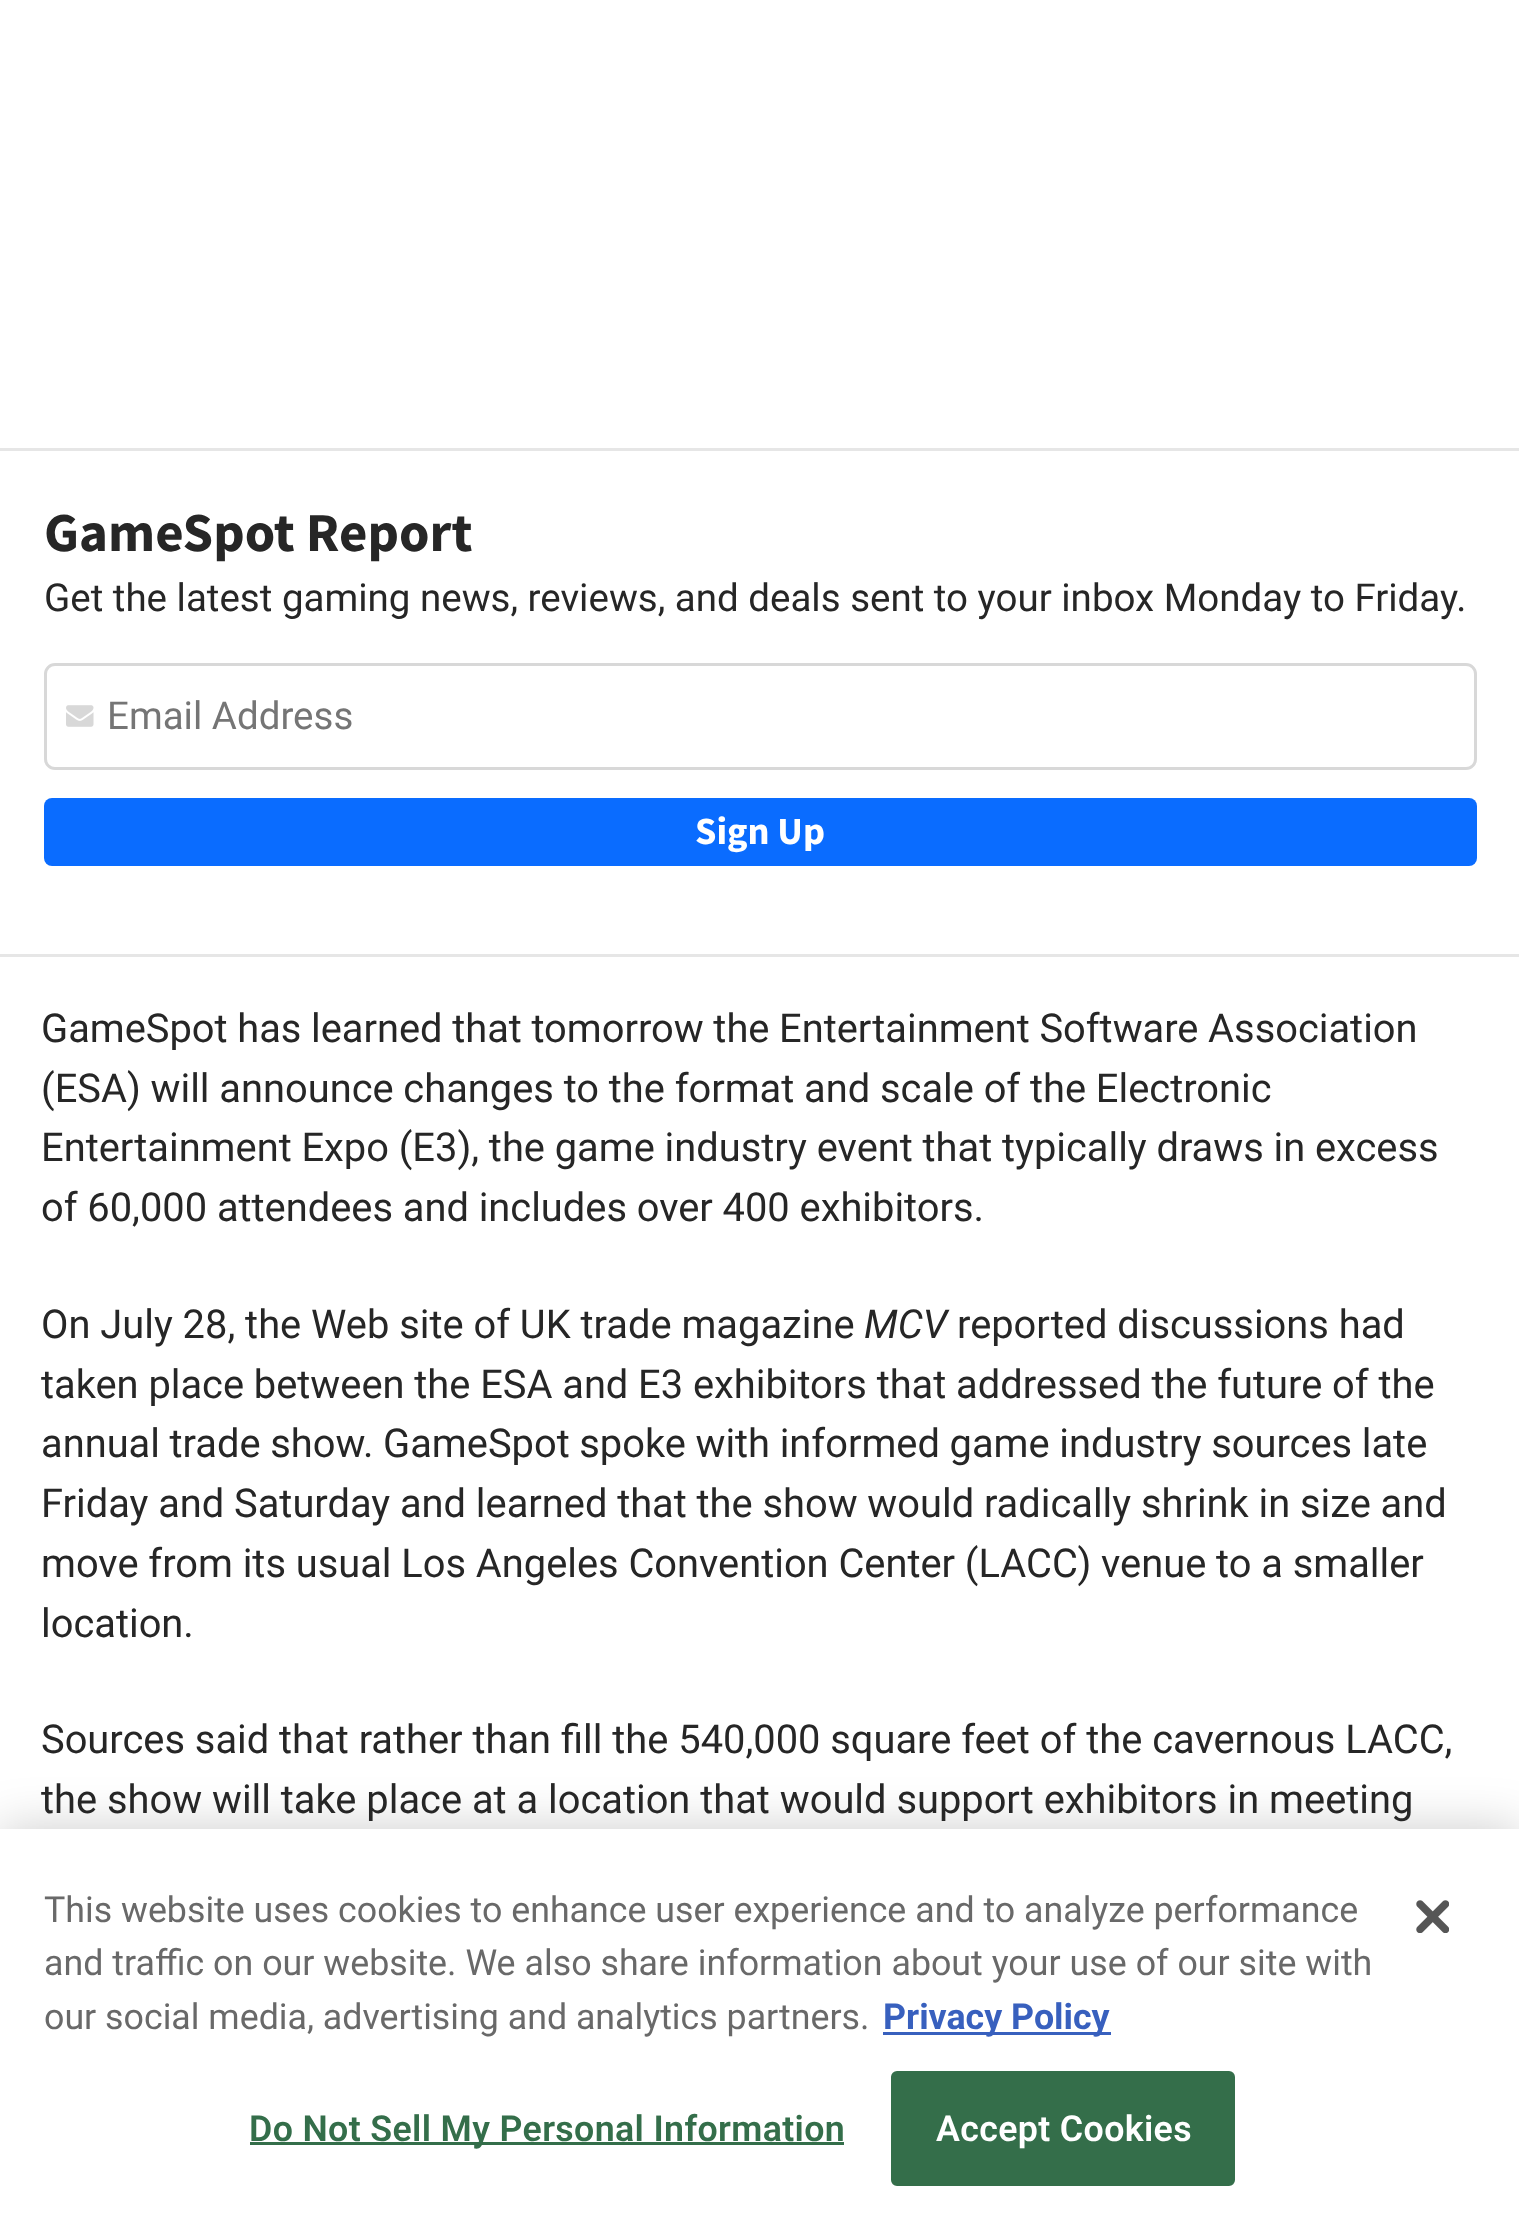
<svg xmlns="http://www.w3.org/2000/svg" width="1519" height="2228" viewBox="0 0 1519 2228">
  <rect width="100%" height="100%" fill="#fff"/>
  <path d="M0 448h1519v3H0z" fill="#e6e6e6"/>
  <path d="M0 954h1519v3H0z" fill="#e6e6e6"/>
  <rect x="45.5" y="664.5" width="1430" height="104" rx="9.5" fill="none" stroke="#d8d8d8" stroke-width="3"/>
  <image x="66" y="705" width="28" height="22" href="img/1.png"/>
  <rect x="44" y="798" width="1433" height="68" rx="8" fill="#0a6cff"/>
  <path d="M0 1829h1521v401H0z" fill="#00000033" filter="blur(25px)"/>
  <path d="M0 1829h1519v399H0z" fill="#fff"/>
  <path d="M883 2032h228v3H883z" fill="#3860be"/>
  <path d="M250 2142h594v3H250z" fill="#346e4a"/>
  <rect x="892.5" y="2072.5" width="341" height="112" rx="4.5" fill="#346e4a" stroke="#346e4a" stroke-width="3"/>
  <image x="1416" y="1900" width="33" height="33" href="img/2.png"/>
  <text x="44" y="551" font-family="Source Sans Pro" font-size="55" font-weight="bold" fill="#262626">GameSpot Report</text>
  <text x="44" y="611" font-family="Roboto" font-size="38.5" fill="#262626">Get the latest gaming news, reviews, and deals sent to your inbox Monday to Friday.</text>
  <text x="107" y="729" font-family="Roboto" font-size="38.5" fill="#757575">Email Address</text>
  <text x="695" y="844" font-family="Source Sans Pro" font-size="38.5" font-weight="bold" fill="#fff">Sign Up</text>
  <g font-family="Roboto" font-size="39.85" fill="#262626">
    <text x="41" y="1042" word-spacing="-0.25">GameSpot has learned that tomorrow the Entertainment Software Association</text>
    <text x="41" y="1102" word-spacing="-0.1">(ESA) will announce changes to the format and scale of the Electronic</text>
    <text x="41" y="1161" word-spacing="-0.1">Entertainment Expo (E3), the game industry event that typically draws in excess</text>
    <text x="41" y="1221" word-spacing="-0.1">of 60,000 attendees and includes over 400 exhibitors.</text>
    <text x="41" y="1338">On July 28, the Web site of UK trade magazine</text>
  </g>
  <text x="864" y="1338" font-family="Roboto" font-size="39.85" font-style="italic" fill="#262626">MCV</text>
  <g font-family="Roboto" font-size="39.85" fill="#262626">
    <text x="957" y="1338">reported discussions had</text>
    <text x="41" y="1398" word-spacing="-0.1">taken place between the ESA and E3 exhibitors that addressed the future of the</text>
    <text x="41" y="1457" word-spacing="-0.25">annual trade show. GameSpot spoke with informed game industry sources late</text>
    <text x="41" y="1517" word-spacing="-0.1">Friday and Saturday and learned that the show would radically shrink in size and</text>
    <text x="41" y="1577" word-spacing="-0.1">move from its usual Los Angeles Convention Center (LACC) venue to a smaller</text>
    <text x="41" y="1637">location.</text>
    <text x="41" y="1753">Sources said that rather than fill the 540,000 square feet of the cavernous LACC,</text>
    <text x="41" y="1813">the show will take place at a location that would support exhibitors in meeting</text>
  </g>
  <g font-family="Roboto" font-size="35.75" fill="#696969">
    <text x="44" y="1922">This website uses cookies to enhance user experience and to analyze performance</text>
    <text x="44" y="1975" word-spacing="0.1">and traffic on our website. We also share information about your use of our site with</text>
    <text x="44" y="2029">our social media, advertising and analytics partners.</text>
  </g>
  <text x="883" y="2029" font-family="Roboto" font-size="35.75" font-weight="bold" fill="#3860be">Privacy Policy</text>
  <text x="249" y="2141" font-family="Roboto" font-size="35.75" font-weight="600" letter-spacing="0.35" fill="#346e4a">Do Not Sell My Personal Information</text>
  <text x="936" y="2141" font-family="Roboto" font-size="35.75" font-weight="600" letter-spacing="0.35" fill="#fff">Accept Cookies</text>
</svg>
